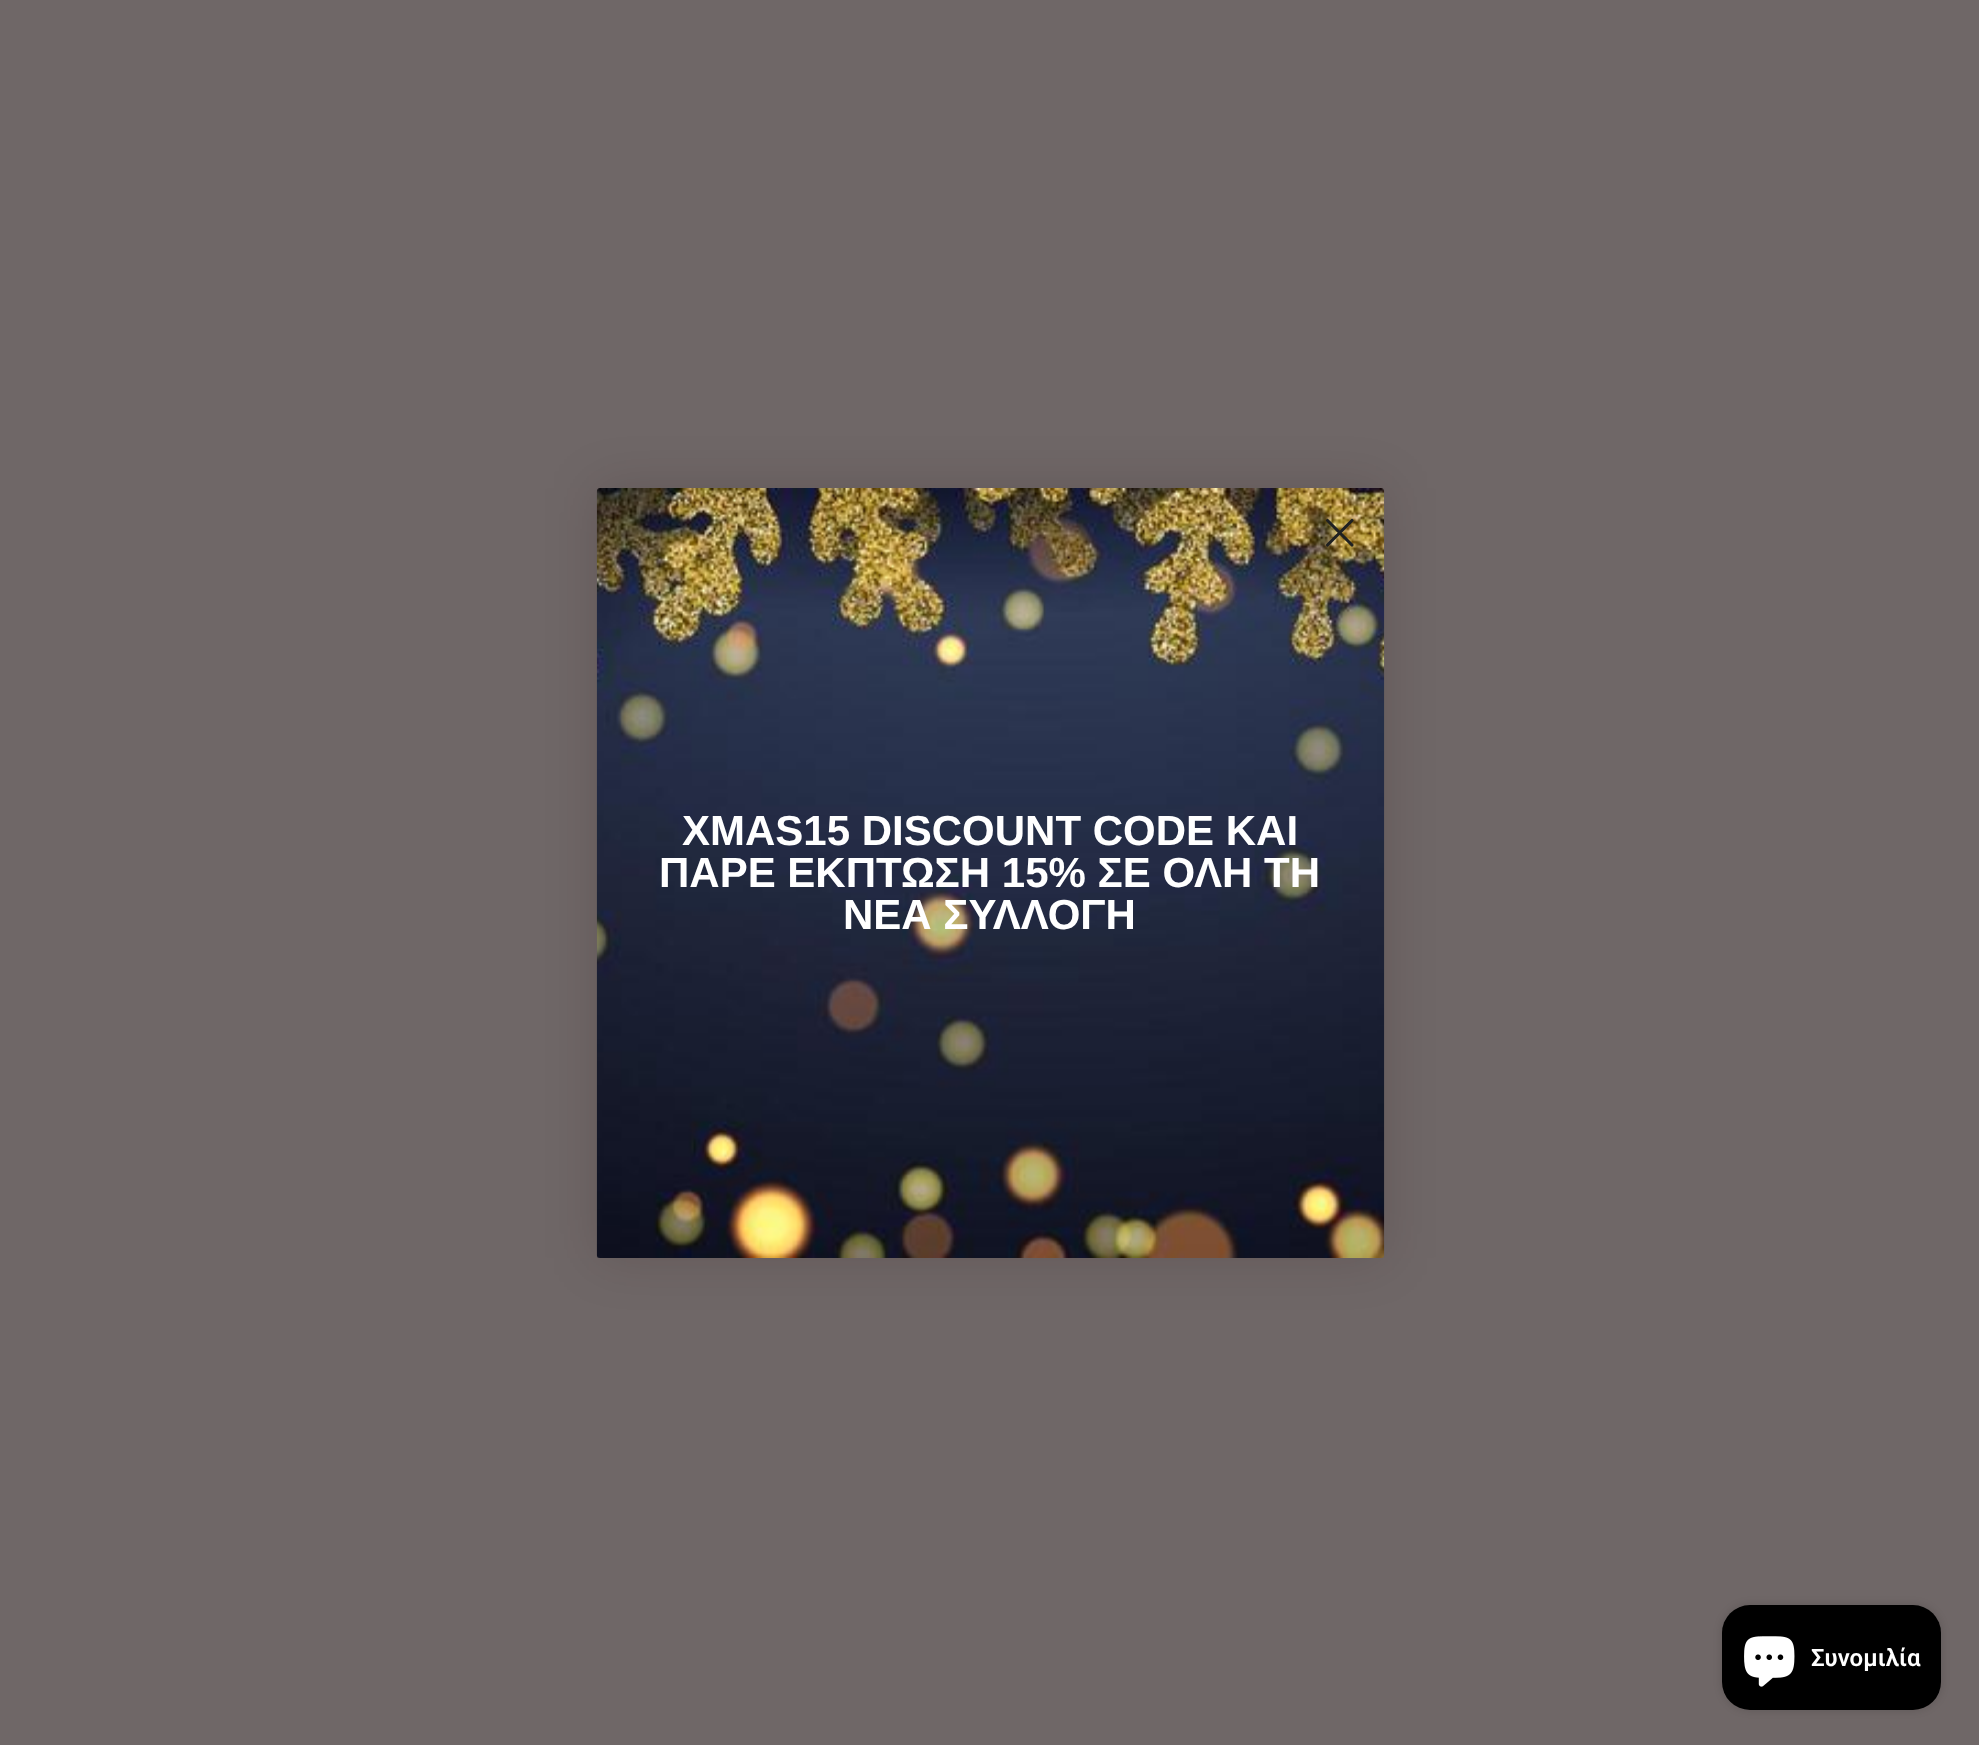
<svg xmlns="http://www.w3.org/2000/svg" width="1979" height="1745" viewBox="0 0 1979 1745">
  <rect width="100%" height="100%" fill="#6f6767"/>
  <rect x="597" y="488" width="787" height="770" rx="4" fill="#19010126" filter="blur(26px)"/>
  <image x="596" y="488" width="789" height="770" href="img/1.png"/>
  <path d="M1327.5 520.5L1352 545M1327.5 545L1352 520.5Z" fill="none" stroke="#1f2122" stroke-width="3.1" stroke-linecap="round" stroke-linejoin="round"/>
  <rect x="1722" y="1605" width="219" height="105" rx="28" fill="#00000026" filter="blur(4.5px)"/>
  <rect x="1722" y="1605" width="219" height="105" rx="28" fill="#000"/>
  <image x="1744" y="1636" width="51" height="51" href="img/2.png"/>
  <g font-family="Liberation Sans" font-size="42" font-weight="bold" fill="#fff">
    <text x="682" y="845">XMAS15 DISCOUNT CODE ΚΑΙ</text>
    <text x="659" y="887">ΠΑΡΕ ΕΚΠΤΩΣΗ 15% ΣΕ ΟΛΗ ΤΗ</text>
    <text x="843" y="929">ΝΕΑ ΣΥΛΛΟΓΗ</text>
  </g>
  <text x="1811" y="1666" font-family="Roboto" font-size="24" font-weight="600" fill="#fff">Συνομιλία</text>
</svg>
